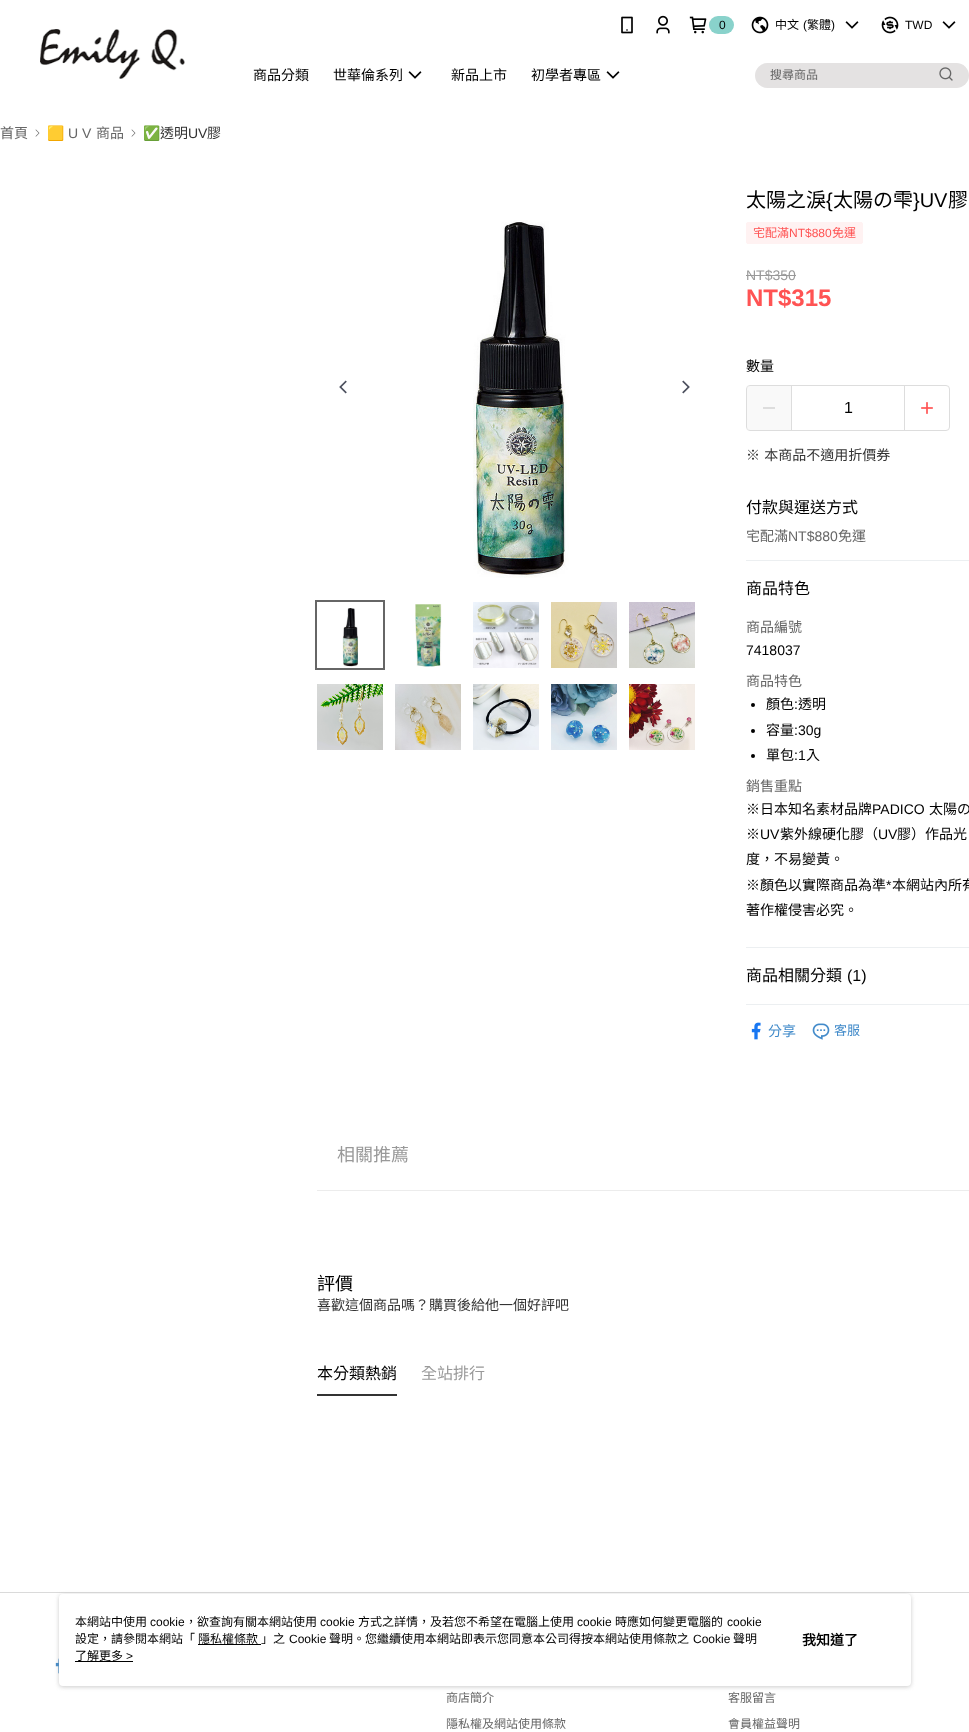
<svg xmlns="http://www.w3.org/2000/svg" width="969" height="1732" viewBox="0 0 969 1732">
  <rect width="100%" height="100%" fill="#fff"/>
  <image x="40" y="29" width="145" height="50" href="img/1.png"/>
  <image x="621" y="16" width="12" height="18" href="img/2.png"/>
  <image x="656" y="15" width="14" height="19" href="img/3.png"/>
  <image x="689" y="16" width="18" height="18" href="img/4.png"/>
  <rect x="709" y="16" width="25" height="18" rx="9" fill="#89d2cb"/>
  <image x="751" y="16" width="18" height="18" href="img/5.png"/>
  <image x="845" y="21" width="14" height="8" href="img/6.png"/>
  <image x="881" y="16" width="18" height="18" href="img/7.png"/>
  <image x="942" y="21" width="14" height="8" href="img/6.png"/>
  <image x="408" y="71" width="14" height="8" href="img/6.png"/>
  <image x="606" y="71" width="14" height="8" href="img/6.png"/>
  <rect x="755" y="63" width="214" height="25" rx="12.5" fill="#e4e2e2"/>
  <image x="939" y="67" width="14" height="14" href="img/8.png"/>
  <image x="35" y="129" width="5" height="8" href="img/9.png"/>
  <image x="131" y="129" width="5" height="8" href="img/9.png"/>
  <image x="339" y="380" width="8" height="14" href="img/10.png"/>
  <image x="473" y="220" width="96" height="358" href="img/11.png"/>
  <image x="682" y="380" width="8" height="14" href="img/12.png"/>
  <image x="342" y="608" width="16" height="59" href="img/13.png"/>
  <path d="M316 601h68v68H316z" fill="none" stroke="#666" stroke-width="2"/>
  <image x="415" y="604" width="27" height="63" href="img/14.png"/>
  <image x="473" y="602" width="66" height="66" href="img/15.png"/>
  <image x="551" y="602" width="66" height="66" href="img/16.png"/>
  <image x="629" y="602" width="66" height="66" href="img/17.png"/>
  <image x="317" y="684" width="66" height="66" href="img/18.png"/>
  <image x="395" y="684" width="66" height="66" href="img/19.png"/>
  <image x="473" y="684" width="66" height="66" href="img/20.png"/>
  <image x="551" y="684" width="66" height="66" href="img/21.png"/>
  <image x="629" y="684" width="66" height="66" href="img/22.png"/>
  <rect x="746.5" y="222.5" width="116" height="21" rx="1.5" fill="#fff2f2" stroke="#fff2f2"/>
  <path d="M746 275h50v1H746z" fill="#999"/>
  <rect x="746.5" y="385.5" width="203" height="45" rx="3.5" fill="none" stroke="#ddd"/>
  <path d="M747 386h44v44H747z" fill="#f1f1f166"/>
  <path d="M763 407h12v2H763z" fill="#ddd"/>
  <path d="M904 386h1v44H904z" fill="#ddd"/>
  <path d="M791 386h1v44H791z" fill="#ddd"/>
  <image x="921" y="402" width="12" height="12" href="img/23.png"/>
  <path d="M746 560h223v1H746z" fill="#eceff1"/>
  <path d="M746 947h223v1H746z" fill="#eceff1"/>
  <circle cx="753" cy="705" r="2" fill="#000"/>
  <circle cx="753" cy="731" r="2" fill="#000"/>
  <circle cx="753" cy="756" r="2" fill="#000"/>
  <path d="M746 1004h223v1H746z" fill="#eceff1"/>
  <image x="751" y="1022" width="10" height="18" href="img/24.png"/>
  <image x="812" y="1023" width="18" height="17" href="img/25.png"/>
  <path d="M317 1190h652v1H317z" fill="#ececec"/>
  <path d="M317 1394h80v2H317z" fill="#333"/>
  <path d="M0 1592h969v1H0z" fill="#dadada"/>
  <image x="55" y="1658" width="4" height="16" href="img/26.png"/>
  <rect x="59" y="1595" width="852" height="92" rx="4" fill="#97979780" filter="blur(2px)"/>
  <rect x="59" y="1594" width="852" height="92" rx="4" fill="#fff"/>
  <path d="M198 1644h63v1H198z" fill="#000"/>
  <path d="M75 1661h58v1H75z" fill="#000"/>
  <text x="719" y="29" font-family="Liberation Sans" font-size="12" fill="#000">0</text>
  <text x="775" y="29" font-family="Noto Sans CJK TC" font-size="12" fill="#000">中文</text>
  <text x="803" y="29" font-family="Liberation Sans" font-size="12" fill="#000">(</text>
  <text x="807" y="29" font-family="Noto Sans CJK TC" font-size="12" fill="#000">繁體</text>
  <g font-family="Liberation Sans" font-size="12" fill="#000">
    <text x="831" y="29">)</text>
    <text x="905" y="29">TWD</text>
  </g>
  <g font-family="Noto Sans CJK TC" font-size="14" fill="#000">
    <text x="253" y="80">商品分類</text>
    <text x="333" y="80">世華倫系列</text>
    <text x="451" y="80">新品上市</text>
    <text x="531" y="80">初學者專區</text>
  </g>
  <text x="770" y="79" font-family="Noto Sans CJK TC" font-size="12" fill="#666">搜尋商品</text>
  <text x="0" y="138" font-family="Noto Sans CJK TC" font-size="14" fill="#666">首頁</text>
  <text x="47" y="138" font-family="Noto Color Emoji" font-size="14" fill="#666">🟨</text>
  <text x="68" y="138" font-family="Liberation Sans" font-size="14" fill="#666">U V</text>
  <text x="96" y="138" font-family="Noto Sans CJK TC" font-size="14" fill="#666">商品</text>
  <text x="143" y="138" font-family="Noto Color Emoji" font-size="14" fill="#333">✅</text>
  <text x="160" y="138" font-family="Noto Sans CJK TC" font-size="14" fill="#333">透明</text>
  <text x="188" y="138" font-family="Liberation Sans" font-size="14" fill="#333">UV</text>
  <text x="207" y="138" font-family="Noto Sans CJK TC" font-size="14" fill="#333">膠</text>
  <text x="746" y="207" font-family="Noto Sans CJK TC" font-size="20" fill="#000">太陽之淚</text>
  <text x="826" y="207" font-family="Liberation Sans" font-size="20" fill="#000">{</text>
  <text x="833" y="207" font-family="Noto Sans CJK TC" font-size="20" fill="#000">太陽の雫</text>
  <text x="913" y="207" font-family="Liberation Sans" font-size="20" fill="#000">}UV</text>
  <text x="948" y="207" font-family="Noto Sans CJK TC" font-size="20" fill="#000">膠</text>
  <text x="753" y="237" font-family="Noto Sans CJK TC" font-size="12" fill="#ff5353">宅配滿</text>
  <text x="789" y="237" font-family="Liberation Sans" font-size="12" fill="#ff5353">NT$880</text>
  <text x="832" y="237" font-family="Noto Sans CJK TC" font-size="12" fill="#ff5353">免運</text>
  <text x="746" y="280" font-family="Liberation Sans" font-size="14" fill="#999">NT$350</text>
  <text x="746" y="306" font-family="Liberation Sans" font-size="24" font-weight="bold" fill="#ff5353">NT$315</text>
  <text x="746" y="371" font-family="Noto Sans CJK TC" font-size="14" fill="#000">數量</text>
  <text x="844" y="413" font-family="Liberation Sans" font-size="16" fill="#000">1</text>
  <text x="746" y="460" word-spacing="1" font-family="Noto Sans CJK TC" font-size="14" fill="#333">※ 本商品不適用折價券</text>
  <text x="746" y="513" font-family="Noto Sans CJK TC" font-size="16" fill="#000">付款與運送方式</text>
  <text x="746" y="541" font-family="Noto Sans CJK TC" font-size="14" fill="#666">宅配滿</text>
  <text x="788" y="541" font-family="Liberation Sans" font-size="14" fill="#666">NT$880</text>
  <text x="838" y="541" font-family="Noto Sans CJK TC" font-size="14" fill="#666">免運</text>
  <text x="746" y="594" font-family="Noto Sans CJK TC" font-size="16" fill="#000">商品特色</text>
  <text x="746" y="632" font-family="Noto Sans CJK TC" font-size="14" fill="#666">商品編號</text>
  <text x="746" y="655" font-family="Liberation Sans" font-size="14" fill="#000">7418037</text>
  <text x="746" y="686" font-family="Noto Sans CJK TC" font-size="14" fill="#666">商品特色</text>
  <text x="766" y="709" font-family="Noto Sans CJK TC" font-size="14" fill="#000">顏色</text>
  <text x="794" y="709" font-family="Liberation Sans" font-size="14" fill="#000">:</text>
  <g font-family="Noto Sans CJK TC" font-size="14" fill="#000">
    <text x="798" y="709">透明</text>
    <text x="766" y="735">容量</text>
  </g>
  <text x="794" y="735" font-family="Liberation Sans" font-size="14" fill="#000">:30g</text>
  <text x="766" y="760" font-family="Noto Sans CJK TC" font-size="14" fill="#000">單包</text>
  <text x="794" y="760" font-family="Liberation Sans" font-size="14" fill="#000">:1</text>
  <text x="806" y="760" font-family="Noto Sans CJK TC" font-size="14" fill="#000">入</text>
  <text x="746" y="791" font-family="Noto Sans CJK TC" font-size="14" fill="#666">銷售重點</text>
  <text x="746" y="814" font-family="Noto Sans CJK TC" font-size="14" fill="#000">※日本知名素材品牌</text>
  <text x="872" y="814" font-family="Liberation Sans" font-size="14" fill="#000">PADICO</text>
  <g font-family="Noto Sans CJK TC" font-size="14" fill="#000">
    <text x="929" y="814">太陽の</text>
    <text x="746" y="839">※</text>
  </g>
  <text x="760" y="839" font-family="Liberation Sans" font-size="14" fill="#000">UV</text>
  <text x="780" y="839" font-family="Noto Sans CJK TC" font-size="14" fill="#000">紫外線硬化膠（</text>
  <text x="878" y="839" font-family="Liberation Sans" font-size="14" fill="#000">UV</text>
  <g font-family="Noto Sans CJK TC" font-size="14" fill="#000">
    <text x="897" y="839">膠）作品光</text>
    <text x="746" y="864">度，不易變黃。</text>
    <text x="746" y="890">※顏色以實際商品為準</text>
  </g>
  <text x="886" y="890" font-family="Liberation Sans" font-size="14" fill="#000">*</text>
  <g font-family="Noto Sans CJK TC" font-size="14" fill="#000">
    <text x="892" y="890">本網站內所有</text>
    <text x="746" y="915">著作權侵害必究。</text>
  </g>
  <text x="746" y="981" font-family="Noto Sans CJK TC" font-size="16" fill="#000">商品相關分類</text>
  <text x="847" y="981" font-family="Liberation Sans" font-size="16" fill="#000">(1)</text>
  <text x="768" y="1036" font-family="Noto Sans CJK TC" font-size="14" fill="#428bca">分享</text>
  <text x="834" y="1035" font-family="Noto Sans CJK TC" font-size="13" fill="#428bca">客服</text>
  <text x="337" y="1161" font-family="Noto Sans CJK TC" font-size="18" fill="#999">相關推薦</text>
  <text x="317" y="1290" font-family="Noto Sans CJK TC" font-size="18" fill="#000">評價</text>
  <text x="317" y="1310" font-family="Noto Sans CJK TC" font-size="14" fill="#333">喜歡這個商品嗎？購買後給他一個好評吧</text>
  <text x="317" y="1379" font-family="Noto Sans CJK TC" font-size="16" fill="#000">本分類熱銷</text>
  <text x="421" y="1379" font-family="Noto Sans CJK TC" font-size="16" fill="#999">全站排行</text>
  <g font-family="Noto Sans CJK TC" font-size="12" fill="#666">
    <text x="446" y="1702">商店簡介</text>
    <text x="446" y="1728">隱私權及網站使用條款</text>
    <text x="728" y="1702">客服留言</text>
    <text x="728" y="1728">會員權益聲明</text>
  </g>
  <text x="75" y="1626" font-family="Noto Sans CJK TC" font-size="12" fill="#000">本網站中使用</text>
  <text x="150" y="1626" font-family="Liberation Sans" font-size="12" fill="#000">cookie</text>
  <text x="185" y="1626" font-family="Noto Sans CJK TC" font-size="12" fill="#000">，欲查詢有關本網站使用</text>
  <text x="320" y="1626" font-family="Liberation Sans" font-size="12" fill="#000">cookie</text>
  <text x="358" y="1626" font-family="Noto Sans CJK TC" font-size="12" fill="#000">方式之詳情，及若您不希望在電腦上使用</text>
  <text x="577" y="1626" font-family="Liberation Sans" font-size="12" fill="#000">cookie</text>
  <text x="615" y="1626" font-family="Noto Sans CJK TC" font-size="12" fill="#000">時應如何變更電腦的</text>
  <text x="727" y="1626" font-family="Liberation Sans" font-size="12" fill="#000">cookie</text>
  <g font-family="Noto Sans CJK TC" font-size="12" fill="#000">
    <text x="75" y="1643">設定，請參閱本網站「</text>
    <text x="198" y="1643">隱私權條款</text>
    <text x="261" y="1643">」之</text>
  </g>
  <text x="289" y="1643" font-family="Liberation Sans" font-size="12" fill="#000">Cookie</text>
  <text x="329" y="1643" font-family="Noto Sans CJK TC" font-size="12" fill="#000">聲明。您繼續使用本網站即表示您同意本公司得按本網站使用條款之</text>
  <text x="693" y="1643" font-family="Liberation Sans" font-size="12" fill="#000">Cookie</text>
  <g font-family="Noto Sans CJK TC" font-size="12" fill="#000">
    <text x="733" y="1643">聲明</text>
    <text x="75" y="1660">了解更多</text>
  </g>
  <text x="126" y="1660" font-family="Liberation Sans" font-size="12" fill="#000">&gt;</text>
  <text x="802" y="1645" font-family="Noto Sans CJK TC" font-size="14" font-weight="bold" fill="#000">我知道了</text>
</svg>
